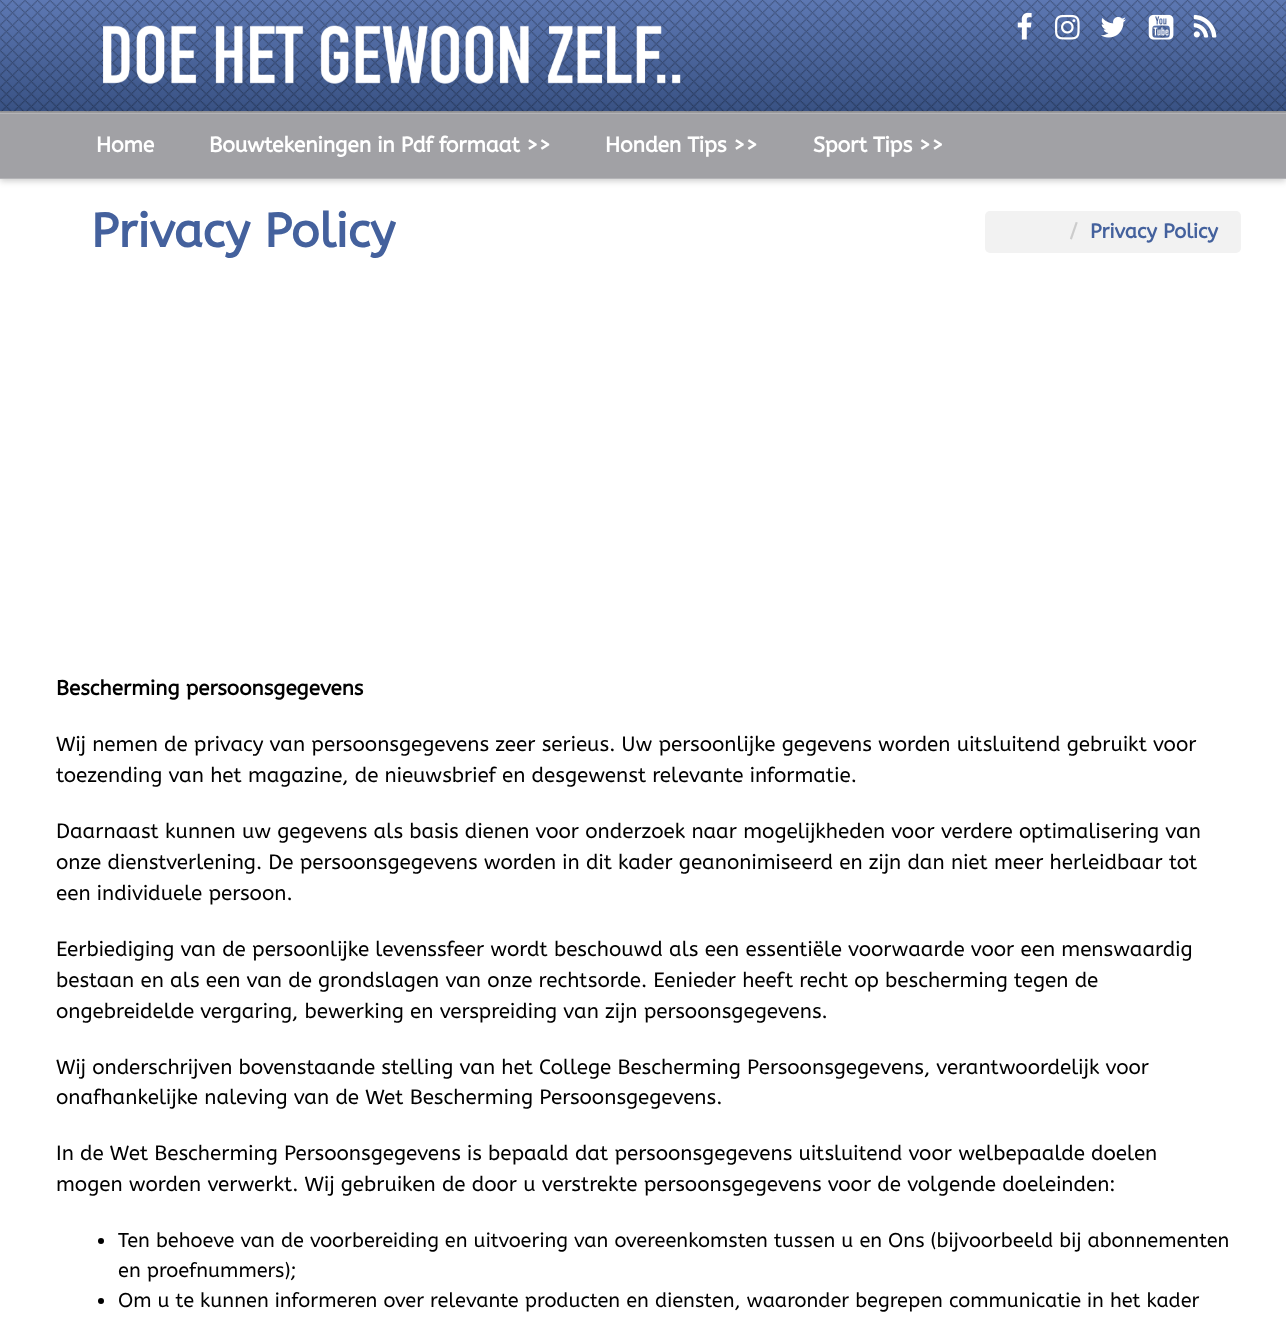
<svg xmlns="http://www.w3.org/2000/svg" width="1286" height="1326" viewBox="0 0 1286 1326">
  <defs>
    <linearGradient id="g1" gradientUnits="userSpaceOnUse" x1="643" y1="0" x2="643" y2="111"><stop offset="0" stop-color="#5d78b3"/><stop offset="1" stop-color="#395284"/></linearGradient>
  </defs>
  <rect width="100%" height="100%" fill="#fff"/>
  <path d="M0 112h1286v1H0z" fill="#a1a1a5"/>
  <path d="M0 0h1286v111H0z" fill="url(#g1)"/>
  <path d="M0 111h1286v1H0z" fill="#97979a"/>
  <image x="0" y="0" width="1286" height="112" href="img/1.png"/>
  <image x="103" y="25" width="578" height="59" href="img/2.png"/>
  <image x="1017" y="12" width="15" height="28" href="img/3.png"/>
  <image x="1055" y="14" width="25" height="26" href="img/4.png"/>
  <image x="1101" y="17" width="25" height="21" href="img/5.png"/>
  <image x="1148" y="14" width="26" height="26" href="img/6.png"/>
  <image x="1193" y="14" width="24" height="24" href="img/7.png"/>
  <path d="M0 115h1286v66H0z" fill="#00000033" filter="blur(3px)"/>
  <path d="M0 114h1286v64H0z" fill="#a1a1a5"/>
  <path d="M0 113h1286v1H0z" fill="#b4b4b7"/>
  <path d="M0 178h1286v1H0z" fill="#b4b4b7"/>
  <rect x="985" y="211" width="256" height="42" rx="5" fill="#f2f2f2"/>
  <circle cx="101" cy="1241" r="3" fill="#000"/>
  <circle cx="101" cy="1301" r="3" fill="#000"/>
  <g font-family="ABeeZee" font-size="21.25" font-weight="bold" letter-spacing="-0.2" fill="#fff">
    <text x="96" y="152">Home</text>
    <text x="209" y="152">Bouwtekeningen in Pdf formaat &gt;&gt;</text>
    <text x="605" y="152">Honden Tips &gt;&gt;</text>
    <text x="813" y="152">Sport Tips &gt;&gt;</text>
  </g>
  <text x="91" y="247" font-family="ABeeZee" font-size="47.5" font-weight="bold" fill="#44619d">Privacy Policy</text>
  <text x="1069" y="238" font-family="ABeeZee" font-size="20" font-weight="bold" fill="#ccc">/</text>
  <text x="1090" y="238" font-family="ABeeZee" font-size="20" font-weight="bold" fill="#44619d">Privacy Policy</text>
  <text x="56" y="695" font-family="ABeeZee" font-size="20.62" font-weight="bold" fill="#000">Bescherming persoonsgegevens</text>
  <g font-family="ABeeZee" font-size="20.62" fill="#000">
    <text x="56" y="751">Wij nemen de privacy van persoonsgegevens zeer serieus. Uw persoonlijke gegevens worden uitsluitend gebruikt voor</text>
    <text x="56" y="782">toezending van het magazine, de nieuwsbrief en desgewenst relevante informatie.</text>
    <text x="56" y="838">Daarnaast kunnen uw gegevens als basis dienen voor onderzoek naar mogelijkheden voor verdere optimalisering van</text>
    <text x="56" y="869">onze dienstverlening. De persoonsgegevens worden in dit kader geanonimiseerd en zijn dan niet meer herleidbaar tot</text>
    <text x="56" y="900">een individuele persoon.</text>
    <text x="56" y="956">Eerbiediging van de persoonlijke levenssfeer wordt beschouwd als een essentiële voorwaarde voor een menswaardig</text>
    <text x="56" y="987">bestaan en als een van de grondslagen van onze rechtsorde. Eenieder heeft recht op bescherming tegen de</text>
    <text x="56" y="1018">ongebreidelde vergaring, bewerking en verspreiding van zijn persoonsgegevens.</text>
    <text x="56" y="1074">Wij onderschrijven bovenstaande stelling van het College Bescherming Persoonsgegevens, verantwoordelijk voor</text>
    <text x="56" y="1104">onafhankelijke naleving van de Wet Bescherming Persoonsgegevens.</text>
    <text x="56" y="1160">In de Wet Bescherming Persoonsgegevens is bepaald dat persoonsgegevens uitsluitend voor welbepaalde doelen</text>
    <text x="56" y="1191">mogen worden verwerkt. Wij gebruiken de door u verstrekte persoonsgegevens voor de volgende doeleinden:</text>
  </g>
  <g font-family="ABeeZee" font-size="20" fill="#000">
    <text x="118" y="1247">Ten behoeve van de voorbereiding en uitvoering van overeenkomsten tussen u en Ons (bijvoorbeeld bij abonnementen</text>
    <text x="118" y="1277">en proefnummers);</text>
    <text x="118" y="1307">Om u te kunnen informeren over relevante producten en diensten, waaronder begrepen communicatie in het kader</text>
  </g>
</svg>
